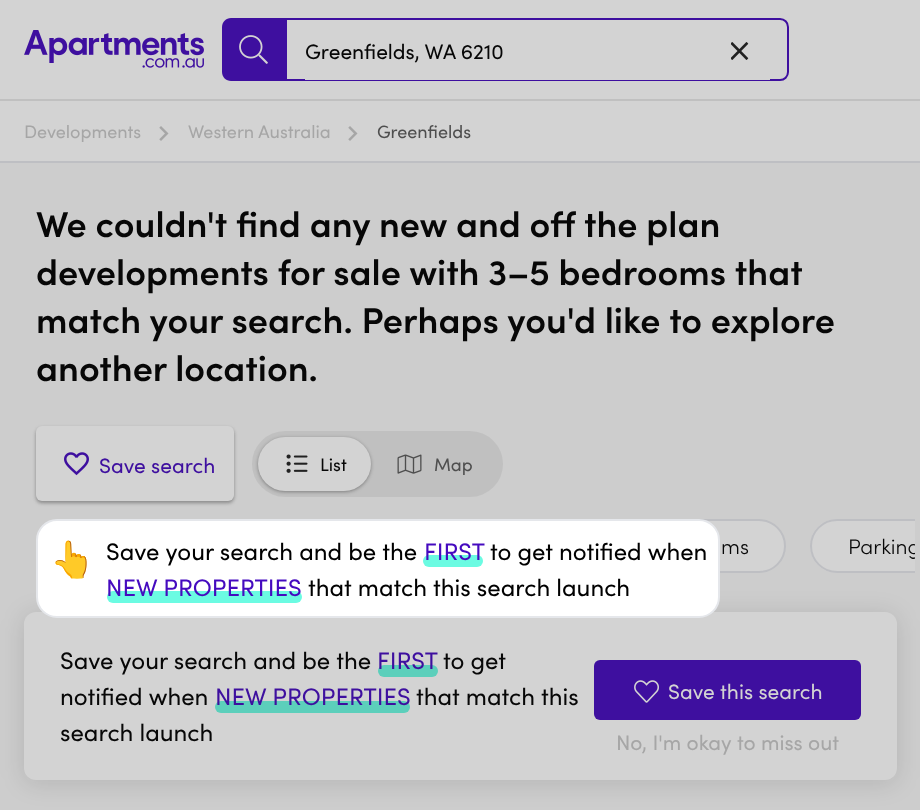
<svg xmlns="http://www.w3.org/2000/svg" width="920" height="810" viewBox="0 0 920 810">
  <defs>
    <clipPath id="clip1"><path d="M6 501h909v90H6z"/></clipPath>
  </defs>
  <rect width="100%" height="100%" fill="#d3d3d3"/>
  <path d="M0 99h920v2H0z" fill="#c0c0c0"/>
  <image x="24" y="30" width="180" height="38" href="img/1.png"/>
  <path d="M231 18H285V81H231C226 81 222 77 222 72V27C222 22 226 18 231 18Z" fill="#3e0f9f"/>
  <image x="239" y="35" width="29" height="29" href="img/2.png"/>
  <path d="M286 19H780C784.5 19 788 22.5 788 27V72C788 76.5 784.5 80 780 80H286Z" fill="none" stroke="#3e0f9f" stroke-width="2"/>
  <path d="M305 79h465v1H305z" fill="#d3d3d3"/>
  <image x="731" y="42" width="18" height="18" href="img/3.png"/>
  <path d="M0 161h920v2H0z" fill="#bebfc3"/>
  <image x="159" y="126" width="10" height="15" href="img/4.png"/>
  <image x="348" y="126" width="10" height="15" href="img/4.png"/>
  <path d="M0 163h920v647H0z" fill="#cdcdcd"/>
  <rect x="36" y="428" width="198" height="75" rx="6" fill="#0707073d" filter="blur(1.5px)"/>
  <rect x="36" y="428" width="198" height="75" rx="6" fill="#0707071f" filter="blur(2px)"/>
  <rect x="36" y="426" width="198" height="75" rx="6" fill="#d3d3d3"/>
  <image x="64" y="452" width="25" height="24" href="img/5.png"/>
  <rect x="24" y="615" width="873" height="168" rx="12" fill="#0707071f" filter="blur(12px)"/>
  <rect x="24" y="612" width="873" height="168" rx="12" fill="#d3d3d3"/>
  <rect x="378" y="665" width="60" height="12" rx="6" fill="#5ccfbb"/>
  <rect x="215" y="701" width="195" height="12" rx="6" fill="#5ccfbb"/>
  <rect x="594" y="660" width="267" height="60" rx="6" fill="#3e0f9f"/>
  <image x="634" y="680" width="25" height="23" href="img/6.png"/>
  <rect x="252" y="431" width="251" height="66" rx="33" fill="#c0c0c0"/>
  <rect x="258" y="438" width="113" height="54" rx="27" fill="#0707073d" filter="blur(1.5px)"/>
  <rect x="258" y="438" width="113" height="54" rx="27" fill="#0707071f" filter="blur(2px)"/>
  <rect x="258" y="437" width="113" height="54" rx="27" fill="#d3d3d3"/>
  <image x="286" y="454" width="22" height="19" href="img/7.png"/>
  <image x="397" y="454" width="25" height="20" href="img/8.png"/>
  <rect x="37" y="520" width="205" height="52" rx="26" fill="none" stroke="#bebfc3" stroke-width="2"/>
  <rect x="609" y="520" width="176" height="52" rx="26" fill="#d3d3d3" stroke="#bebfc3" stroke-width="2"/>
  <path d="M837 519H915V573H837C822 573 810 561 810 546C810 531 822 519 837 519Z" fill="#d3d3d3"/>
  <g clip-path="url(#clip1)">
    <rect x="811" y="520" width="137" height="52" rx="26" fill="none" stroke="#bebfc3" stroke-width="2"/>
  </g>
  <rect x="37" y="520" width="682" height="97" rx="20" fill="#fff" stroke="#e5e7eb" stroke-width="2"/>
  <rect x="423" y="555" width="60" height="12" rx="6" fill="#6bfbe2"/>
  <rect x="107" y="591" width="195" height="12" rx="6" fill="#6bfbe2"/>
  <text x="305" y="59" font-family="Sofia" font-size="21" fill="#070707">Greenfields, WA 6210</text>
  <g font-family="Sofia" font-size="18" fill="#a6a6a6">
    <text x="24" y="138">Developments</text>
    <text x="188" y="138">Western Australia</text>
  </g>
  <text x="377" y="138" font-family="Sofia" font-size="18" fill="#4e4e4e">Greenfields</text>
  <g font-family="Sofia" font-size="36" font-weight="600" fill="#070707">
    <text x="36" y="237">We couldn't find any new and off the plan</text>
    <text x="36" y="285">developments for sale with 3–5 bedrooms that</text>
    <text x="36" y="333">match your search. Perhaps you'd like to explore</text>
    <text x="36" y="381">another location.</text>
  </g>
  <text x="99" y="473" font-family="Sofia" font-size="21" fill="#3e0f9f">Save search</text>
  <text x="60" y="669" font-family="Sofia" font-size="24" fill="#070707">Save your search and be the</text>
  <text x="377" y="669" font-family="Sofia" font-size="24" fill="#3e0f9f">FIRST</text>
  <g font-family="Sofia" font-size="24" fill="#070707">
    <text x="443" y="669">to get</text>
    <text x="60" y="705">notified when</text>
  </g>
  <text x="215" y="705" font-family="Sofia" font-size="24" fill="#3e0f9f">NEW PROPERTIES</text>
  <g font-family="Sofia" font-size="24" fill="#070707">
    <text x="416" y="705">that match this</text>
    <text x="60" y="741">search launch</text>
  </g>
  <text x="668" y="699" font-family="Sofia" font-size="21" fill="#d3d3d3">Save this search</text>
  <text x="616" y="750" font-family="Sofia" font-size="21" fill="#a6a6a6">No, I'm okay to miss out</text>
  <text x="320" y="471" font-family="Sofia" font-size="18" fill="#070707">List</text>
  <text x="434" y="471" font-family="Sofia" font-size="18" fill="#4e4e4e">Map</text>
  <text x="721" y="554" font-family="Sofia" font-size="21" font-weight="300" fill="#070707">ms</text>
  <g clip-path="url(#clip1)">
    <text x="848" y="554" font-family="Sofia" font-size="21" font-weight="300" fill="#070707">Parking</text>
  </g>
  <text x="50" y="572" font-family="Noto Color Emoji" font-size="36" fill="#000">👆</text>
  <text x="106" y="560" font-family="Sofia" font-size="24" fill="#000">Save your search and be the</text>
  <text x="424" y="560" font-family="Sofia" font-size="24" fill="#450abf">FIRST</text>
  <text x="490" y="560" font-family="Sofia" font-size="24" fill="#000">to get notified when</text>
  <text x="106" y="596" font-family="Sofia" font-size="24" fill="#450abf">NEW PROPERTIES</text>
  <text x="308" y="596" font-family="Sofia" font-size="24" fill="#000">that match this search launch</text>
</svg>
